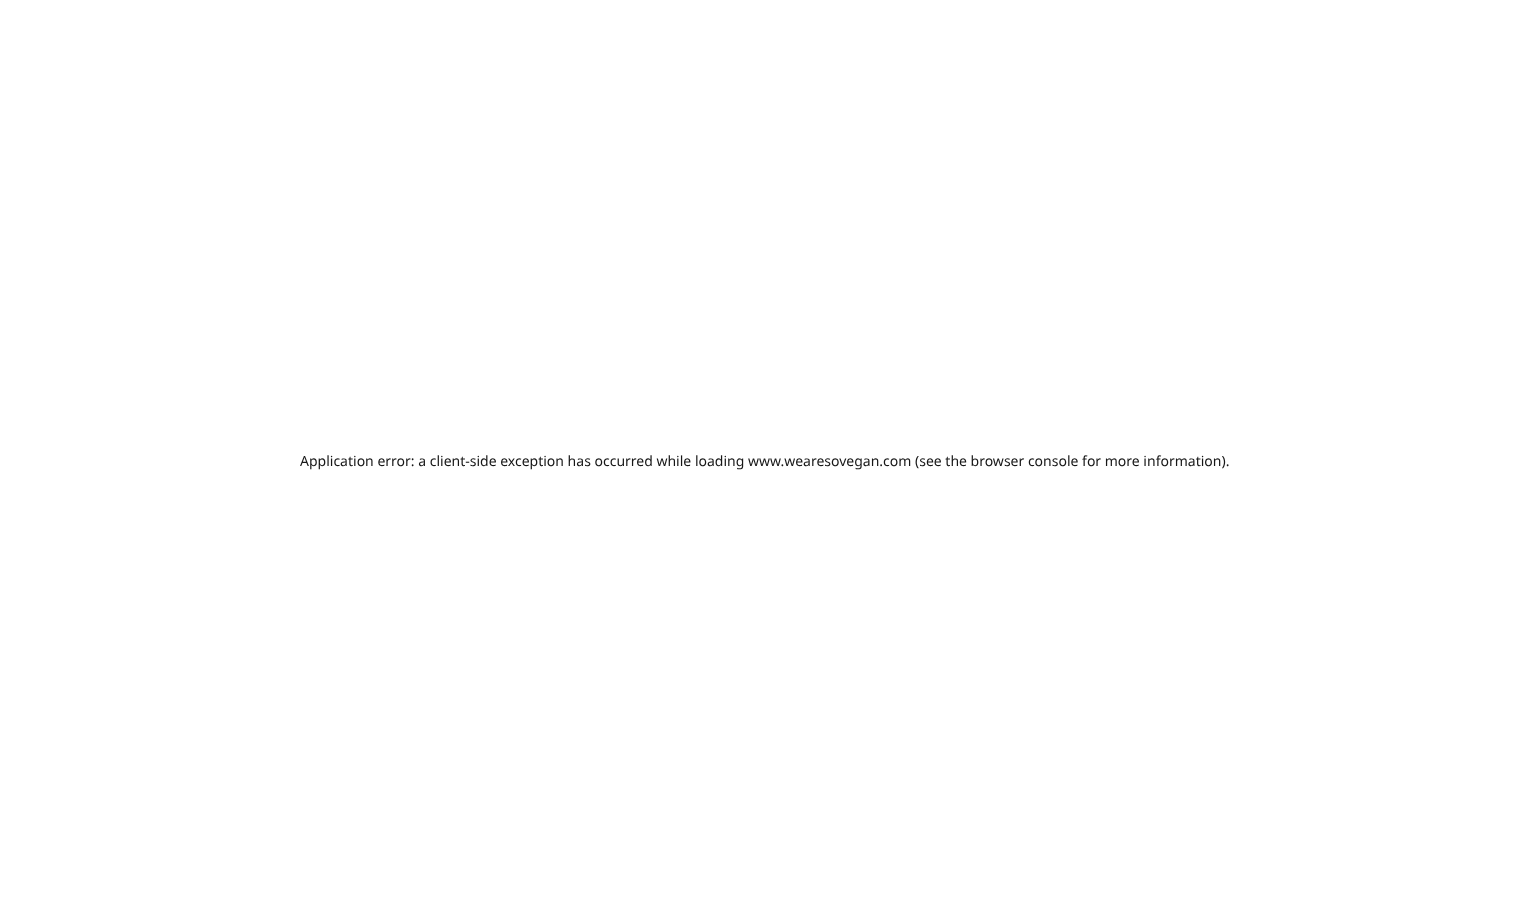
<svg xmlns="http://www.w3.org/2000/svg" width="1529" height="921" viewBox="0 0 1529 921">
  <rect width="100%" height="100%" fill="#fff"/>
  <text x="300" y="466" font-family="Noto Sans" font-size="14" fill="#171717">Application error: a client-side exception has occurred while loading www.wearesovegan.com (see the browser console for more information).</text>
</svg>
